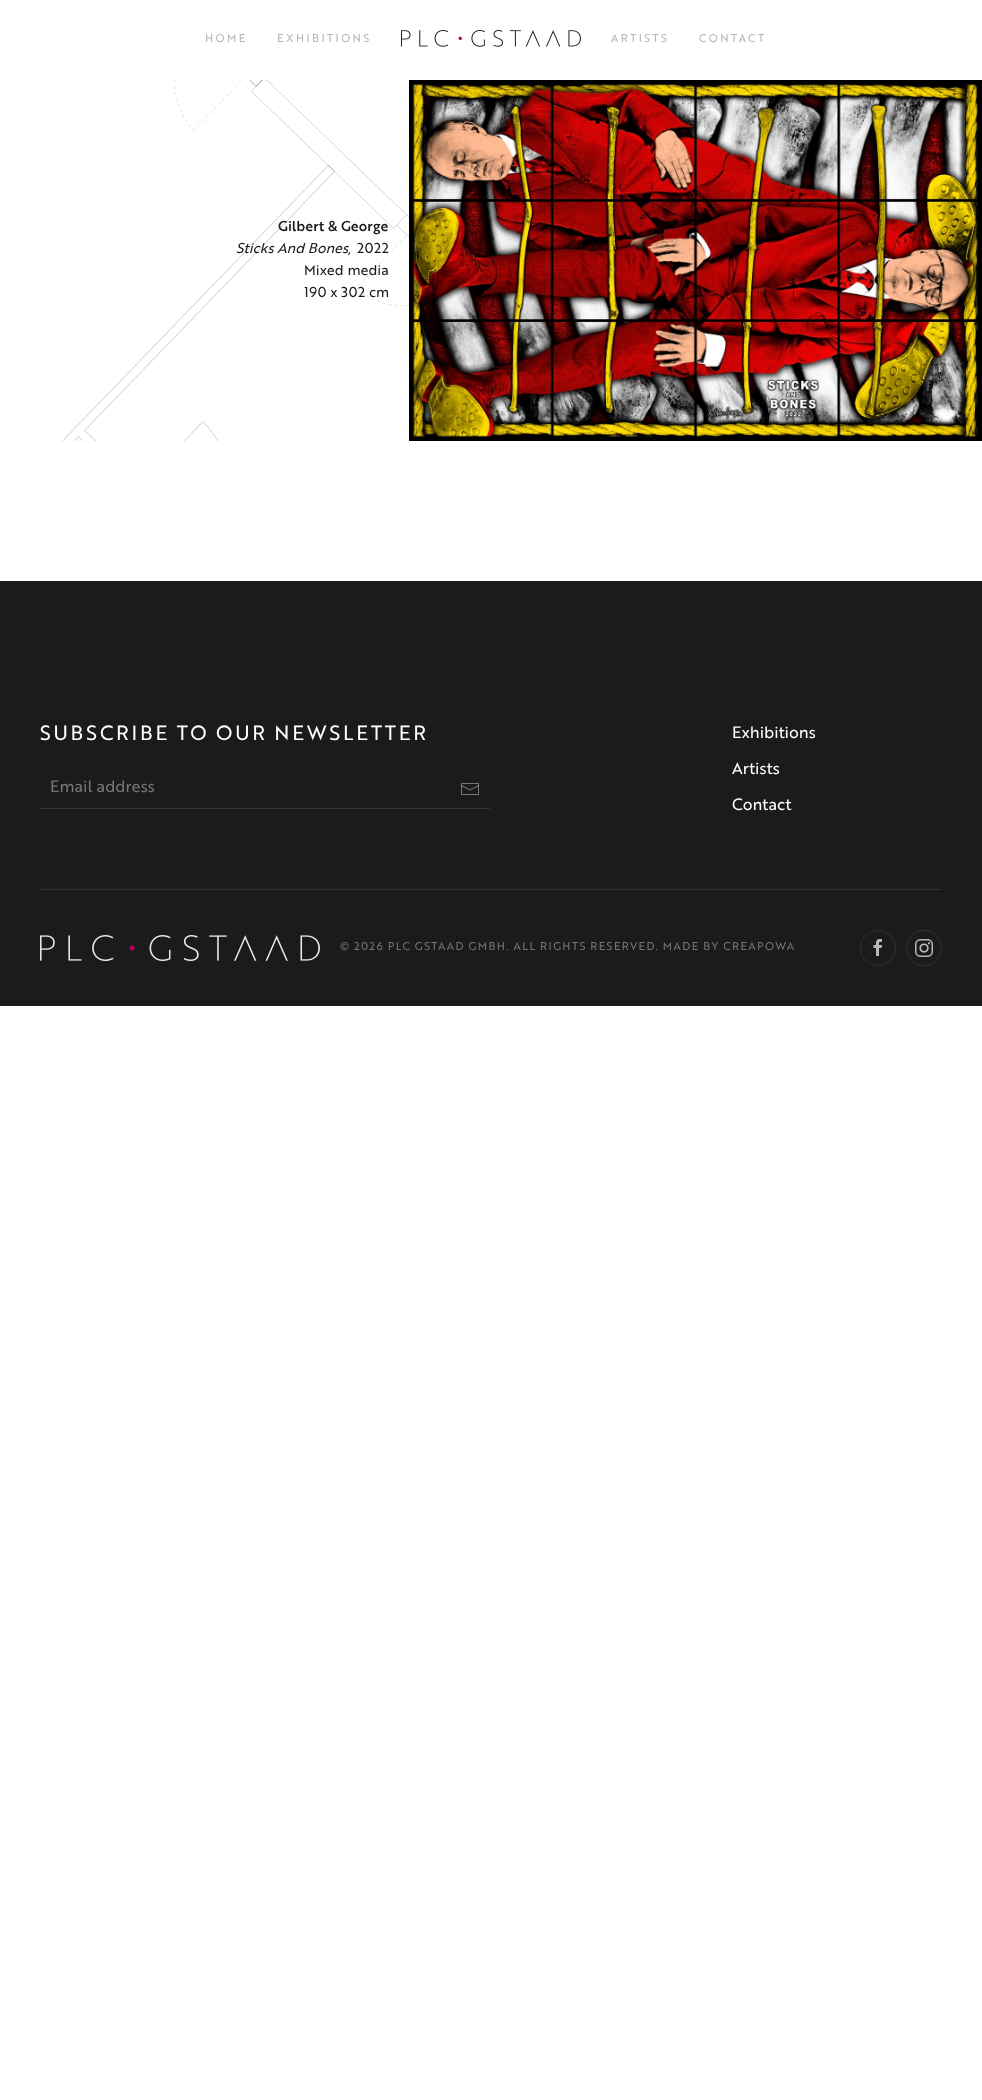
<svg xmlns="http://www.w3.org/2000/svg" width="982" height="2100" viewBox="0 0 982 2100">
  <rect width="100%" height="100%" fill="#fff"/>
  <image x="401" y="30" width="180" height="17" href="img/1.png"/>
  <image x="62" y="80" width="347" height="361" href="img/2.png"/>
  <image x="409" y="80" width="573" height="361" href="img/3.png"/>
  <path d="M0 581h982v425H0z" fill="#1b1b1b"/>
  <path d="M40 808h450v1H40z" fill="#323232"/>
  <image x="461" y="783" width="18" height="12" href="img/4.png"/>
  <path d="M40 889h902v1H40z" fill="#323232"/>
  <image x="40" y="935" width="280" height="26" href="img/5.png"/>
  <circle cx="878" cy="948" r="17.5" fill="none" stroke="#323232"/>
  <image x="873" y="939" width="9" height="17" href="img/6.png"/>
  <circle cx="924" cy="948" r="17.5" fill="none" stroke="#323232"/>
  <image x="915" y="939" width="18" height="18" href="img/7.png"/>
  <g font-family="'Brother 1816'" font-size="11" letter-spacing="2" fill="#b4b5ba">
    <text x="205" y="42">HOME</text>
    <text x="277" y="42">EXHIBITIONS</text>
    <text x="611" y="42">ARTISTS</text>
    <text x="699" y="42">CONTACT</text>
  </g>
  <text x="278" y="231" font-family="'Brother 1816'" font-size="14" font-weight="500" fill="#1b1b1b">Gilbert &amp; George</text>
  <text x="236" y="253" font-family="'Brother 1816'" font-size="14" font-style="italic" fill="#1b1b1b">Sticks And Bones</text>
  <g font-family="'Brother 1816'" font-size="14" fill="#1b1b1b">
    <text x="348" y="253">,</text>
    <text x="357" y="253">2022</text>
    <text x="304" y="275">Mixed media</text>
    <text x="304" y="297">190 x 302 cm</text>
  </g>
  <text x="40" y="740" font-family="'Brother 1816'" font-size="20" letter-spacing="2" fill="#fff">SUBSCRIBE TO OUR NEWSLETTER</text>
  <text x="50" y="792" font-family="'Brother 1816'" font-size="16" fill="#767676">Email address</text>
  <g font-family="'Brother 1816'" font-size="16" fill="#fff">
    <text x="732" y="738">Exhibitions</text>
    <text x="732" y="774">Artists</text>
    <text x="732" y="810">Contact</text>
  </g>
  <text x="340" y="950" font-family="'Brother 1816'" font-size="11" letter-spacing="1" fill="#767676">© 2026 PLC GSTAAD GMBH. ALL RIGHTS RESERVED. MADE BY CREAPOWA</text>
</svg>
